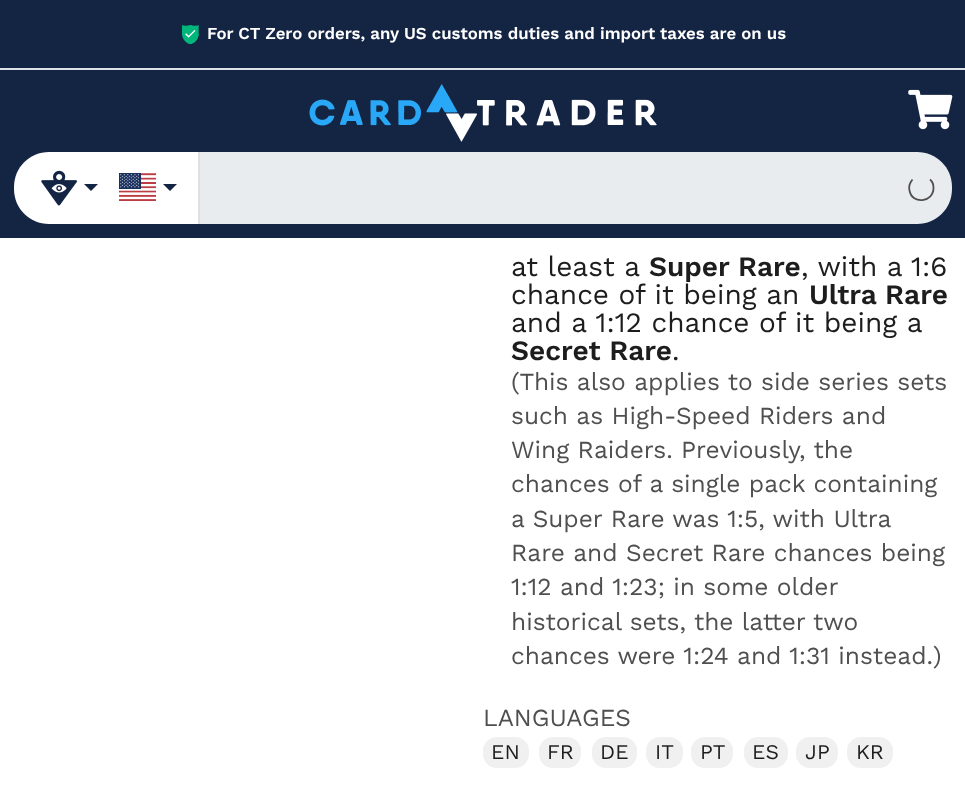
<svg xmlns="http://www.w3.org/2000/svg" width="965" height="807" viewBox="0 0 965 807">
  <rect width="100%" height="100%" fill="#fff"/>
  <path d="M0 0h965v68H0z" fill="#142544"/>
  <path d="M0 68h965v2H0z" fill="#dee2e6"/>
  <image x="182" y="25" width="17" height="19" href="img/1.png"/>
  <path d="M0 70h965v168H0z" fill="#142544"/>
  <image x="309" y="84" width="348" height="58" href="img/2.png"/>
  <image x="908" y="89" width="45" height="41" href="img/3.png"/>
  <path d="M49 152H119V224H49C29.5 224 14 208.5 14 189V187C14 167.5 29.5 152 49 152Z" fill="#fff"/>
  <image x="41" y="170" width="37" height="36" href="img/4.png"/>
  <path d="M84 184H98L91 191Z" fill="#142544"/>
  <path d="M119 152h79v72H119z" fill="#fff"/>
  <image x="119" y="173" width="37" height="28" href="img/5.png"/>
  <path d="M163 184H177L170 191Z" fill="#142544"/>
  <path d="M200 152H917C936.5 152 952 167.5 952 187V189C952 208.5 936.5 224 917 224H200Z" fill="#e9ecef"/>
  <path d="M198 152h2v72H198z" fill="#e0e0e0"/>
  <path d="M930 179.5C932.5 181.5 933.5 185 933.5 188C933.5 202.5 912 205 909.5 190.5C908.5 186.5 910 182.5 912.5 179.5" fill="none" stroke="#4f4f4f" stroke-width="1.8"/>
  <rect x="483" y="737" width="46" height="31" rx="14" fill="#f0f0f0"/>
  <rect x="539" y="737" width="42" height="31" rx="14" fill="#f0f0f0"/>
  <rect x="592" y="737" width="45" height="31" rx="14" fill="#f0f0f0"/>
  <rect x="646" y="737" width="37" height="31" rx="14" fill="#f0f0f0"/>
  <rect x="691" y="737" width="42" height="31" rx="14" fill="#f0f0f0"/>
  <rect x="744" y="737" width="44" height="31" rx="14" fill="#f0f0f0"/>
  <rect x="796" y="737" width="42" height="31" rx="14" fill="#f0f0f0"/>
  <rect x="847" y="737" width="46" height="31" rx="14" fill="#f0f0f0"/>
  <text x="207" y="39" font-family="Work Sans" font-size="16.8" font-weight="600" fill="#fff">For CT Zero orders, any US customs duties and import taxes are on us</text>
  <text x="511" y="276" font-family="Work Sans" font-size="28" fill="#1d1d1d">at least a</text>
  <text x="649" y="276" font-family="Work Sans" font-size="28" font-weight="600" fill="#1d1d1d">Super Rare</text>
  <g font-family="Work Sans" font-size="28" fill="#1d1d1d">
    <text x="801" y="276">, with a 1:6</text>
    <text x="511" y="304">chance of it being an</text>
  </g>
  <text x="809" y="304" font-family="Work Sans" font-size="28" font-weight="600" fill="#1d1d1d">Ultra Rare</text>
  <text x="511" y="332" font-family="Work Sans" font-size="28" fill="#1d1d1d">and a 1:12 chance of it being a</text>
  <text x="511" y="360" font-family="Work Sans" font-size="28" font-weight="600" fill="#1d1d1d">Secret Rare</text>
  <text x="672" y="360" font-family="Work Sans" font-size="28" fill="#1d1d1d">.</text>
  <g font-family="Work Sans" font-size="24.5" fill="#4f4f4f">
    <text x="511" y="390">(This also applies to side series sets</text>
    <text x="511" y="424">such as High-Speed Riders and</text>
    <text x="511" y="458">Wing Raiders. Previously, the</text>
    <text x="511" y="492">chances of a single pack containing</text>
    <text x="511" y="527">a Super Rare was 1:5, with Ultra</text>
    <text x="511" y="561">Rare and Secret Rare chances being</text>
    <text x="511" y="595">1:12 and 1:23; in some older</text>
    <text x="511" y="630">historical sets, the latter two</text>
    <text x="511" y="664">chances were 1:24 and 1:31 instead.)</text>
    <text x="483" y="726">LANGUAGES</text>
  </g>
  <g font-family="Work Sans" font-size="21" fill="#1d1d1d">
    <text x="491" y="759">EN</text>
    <text x="547" y="759">FR</text>
    <text x="600" y="759">DE</text>
    <text x="655" y="759">IT</text>
    <text x="700" y="759">PT</text>
    <text x="752" y="759">ES</text>
    <text x="805" y="759">JP</text>
    <text x="856" y="759">KR</text>
  </g>
</svg>
